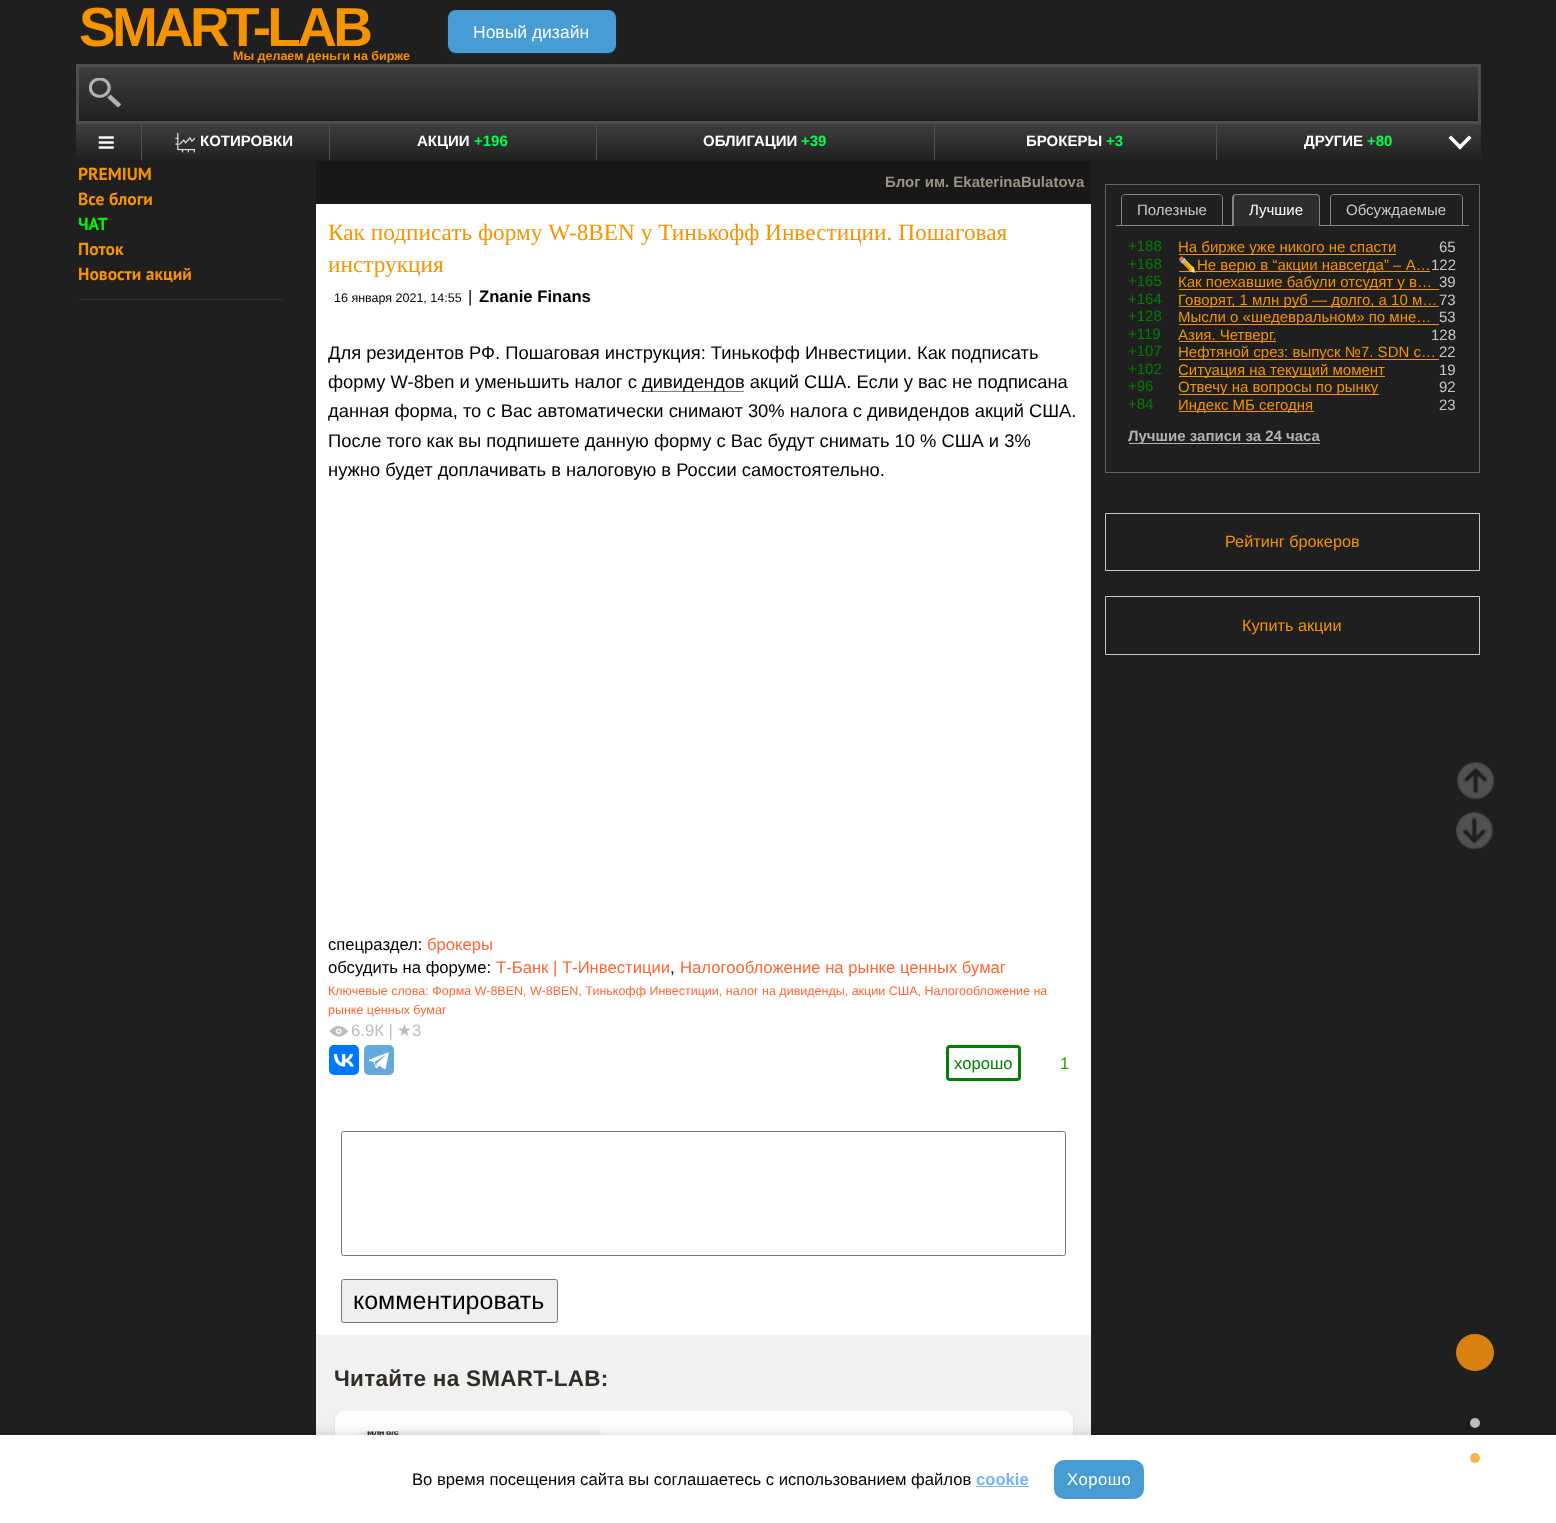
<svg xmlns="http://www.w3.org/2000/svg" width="1556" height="1523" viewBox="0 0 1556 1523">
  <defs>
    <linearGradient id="g1" gradientUnits="userSpaceOnUse" x1="779" y1="66" x2="779" y2="121"><stop offset="0" stop-color="#3e3e3e"/><stop offset="1" stop-color="#212121"/></linearGradient>
    <linearGradient id="g2" gradientUnits="userSpaceOnUse" x1="779" y1="124" x2="779" y2="160"><stop offset="0" stop-color="#3e3e3e"/><stop offset="1" stop-color="#212121"/></linearGradient>
    <clipPath id="clip1"><path d="M1179 256h251v18H1179z"/></clipPath>
  </defs>
  <rect width="100%" height="100%" fill="#1f1f1f"/>
  <rect x="448" y="13" width="168" height="42" rx="8" fill="#0b54834d" filter="blur(2.5px)"/>
  <rect x="448" y="10" width="168" height="43" rx="8" fill="#479cd3"/>
  <rect x="1456" y="1334" width="38" height="37" rx="18.5" fill="#d9810f"/>
  <path d="M316 1335h775v100H316z" fill="#f1f1f1"/>
  <rect x="335" y="1413" width="738" height="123" rx="10" fill="#75757538" filter="blur(1px)"/>
  <rect x="335" y="1411" width="738" height="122" rx="10" fill="#fff"/>
  <image x="357" y="1431" width="246" height="4" href="img/7.png"/>
  <path d="M0 1441h1556v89H0z" fill="#00000059" filter="blur(9.5px)"/>
  <circle cx="1475" cy="1423" r="5" fill="#bcbcbc"/>
  <path d="M0 1435h1556v88H0z" fill="#fff"/>
  <circle cx="1475" cy="1458" r="5" fill="#f8b34d"/>
  <path d="M79 67h1399v53H79z" fill="url(#g1)"/>
  <path d="M77.5 65.5h1402v57H77.5z" fill="none" stroke="#4e4e4e" stroke-width="3"/>
  <image x="89" y="78" width="32" height="30" href="img/1.png"/>
  <path d="M76 124h1405v35H76z" fill="url(#g2)"/>
  <image x="98" y="136" width="16" height="13" href="img/2.png"/>
  <path d="M141 124h1v36H141z" fill="#505050"/>
  <image x="175" y="133" width="20" height="20" href="img/3.png"/>
  <path d="M329 124h1v36H329z" fill="#505050"/>
  <path d="M596 124h1v36H596z" fill="#505050"/>
  <path d="M934 124h1v36H934z" fill="#505050"/>
  <path d="M1216 124h1v36H1216z" fill="#505050"/>
  <path d="M1469 135.5L1471.5 138L1460 149.5L1457.5 147Z" fill="#fff"/>
  <path d="M1451 135.5L1462.5 147L1460 149.5L1448.5 138Z" fill="#fff"/>
  <path d="M79 299h204v1H79z" fill="#353535"/>
  <path d="M316 161h775v43H316z" fill="#181818"/>
  <path d="M316 204h775v1131H316z" fill="#fff"/>
  <path d="M641 391h103v1H641z" fill="#7f7f7f"/>
  <image x="329" y="1026" width="19" height="11" href="img/4.png"/>
  <rect x="329" y="1045" width="30" height="30" rx="5" fill="#07f"/>
  <image x="333" y="1054" width="21" height="13" href="img/5.png"/>
  <rect x="364" y="1045" width="30" height="30" rx="5" fill="#64a9dc"/>
  <image x="368" y="1052" width="21" height="18" href="img/6.png"/>
  <rect x="947.5" y="1046.5" width="72" height="33" rx="2.5" fill="none" stroke="#008000" stroke-width="3"/>
  <rect x="341.5" y="1131.5" width="724" height="124" rx="2" fill="none" stroke="#767676"/>
  <rect x="341.5" y="1279.5" width="216" height="43" rx="2" fill="#efefef" stroke="#767676"/>
  <path d="M1105.5 184.5h374v288H1105.5z" fill="none" stroke="#646464"/>
  <path d="M1116 225h353v1H1116z" fill="#848484"/>
  <path d="M1125 194.5H1219C1221 194.5 1222.5 196 1222.5 198V225.5H1121.5V198C1121.5 196 1123 194.5 1125 194.5Z" fill="none" stroke="#848484"/>
  <path d="M1237 194H1316C1318 194 1320 196 1320 198V226H1233V198C1233 196 1235 194 1237 194Z" fill="#2d2d2d"/>
  <path d="M1236 194H1316C1318 194 1320 195 1320 198V226H1232V198C1232 195 1234 194 1236 194ZM1236 195H1316C1318 195 1319 196 1319 198V226H1234V198C1234 196 1235 195 1236 195Z" fill="#848484" fill-rule="evenodd"/>
  <path d="M1334 194.5H1459C1461 194.5 1462.5 196 1462.5 198V225.5H1330.5V198C1330.5 196 1332 194.5 1334 194.5Z" fill="none" stroke="#848484"/>
  <path d="M1179 254h217v1H1179z" fill="#f59300"/>
  <path d="M1179 271h251v1H1179z" fill="#f59300"/>
  <path d="M1179 289h260v1H1179z" fill="#f59300"/>
  <path d="M1179 306h260v1H1179z" fill="#f59300"/>
  <path d="M1179 324h260v1H1179z" fill="#f59300"/>
  <path d="M1179 341h97v1H1179z" fill="#f59300"/>
  <path d="M1179 359h260v1H1179z" fill="#f59300"/>
  <path d="M1179 376h206v1H1179z" fill="#f59300"/>
  <path d="M1179 394h200v1H1179z" fill="#f59300"/>
  <path d="M1179 411h135v1H1179z" fill="#f59300"/>
  <path d="M1129 443h191v1H1129z" fill="#b2b2b2"/>
  <path d="M1105.5 513.5h374v57H1105.5z" fill="none" stroke="#c8c8c8"/>
  <path d="M1105.5 596.5h374v58H1105.5z" fill="none" stroke="#c8c8c8"/>
  <image x="1457" y="762" width="38" height="38" href="img/8.png"/>
  <image x="1456" y="812" width="37" height="38" href="img/9.png"/>
  <path d="M976 1486h53v1H976z" fill="#77b3ff"/>
  <rect x="1054" y="1460" width="90" height="39" rx="10" fill="#479cd3"/>
  <text x="79" y="46" font-family="Liberation Sans" font-size="55" font-weight="bold" letter-spacing="-3.75" fill="#f59300">SMART-LAB</text>
  <text x="233" y="60" font-family="Liberation Sans" font-size="12.5" font-weight="bold" fill="#f59300">Мы делаем деньги на бирже</text>
  <text x="473" y="38" font-family="Liberation Sans" font-size="17.5" fill="#fff">Новый дизайн</text>
  <g font-family="Liberation Sans" font-size="15" font-weight="bold" fill="#fff">
    <text x="200" y="146">КОТИРОВКИ</text>
    <text x="417" y="146">АКЦИИ</text>
  </g>
  <text x="474" y="146" font-family="Liberation Sans" font-size="15" font-weight="bold" fill="#00ff4e">+196</text>
  <text x="703" y="146" font-family="Liberation Sans" font-size="15" font-weight="bold" fill="#fff">ОБЛИГАЦИИ</text>
  <text x="801" y="146" font-family="Liberation Sans" font-size="15" font-weight="bold" fill="#00ff4e">+39</text>
  <text x="1026" y="146" font-family="Liberation Sans" font-size="15" font-weight="bold" fill="#fff">БРОКЕРЫ</text>
  <text x="1106" y="146" font-family="Liberation Sans" font-size="15" font-weight="bold" fill="#00ff4e">+3</text>
  <text x="1304" y="146" font-family="Liberation Sans" font-size="15" font-weight="bold" fill="#fff">ДРУГИЕ</text>
  <text x="1367" y="146" font-family="Liberation Sans" font-size="15" font-weight="bold" fill="#00ff4e">+80</text>
  <g font-family="PT Sans" font-size="17.5" font-weight="bold" fill="#f59300">
    <text x="78" y="180">PREMIUM</text>
    <text x="78" y="205">Все блоги</text>
  </g>
  <text x="78" y="230" font-family="PT Sans" font-size="17.5" font-weight="bold" fill="#00f500">ЧАТ</text>
  <g font-family="PT Sans" font-size="17.5" font-weight="bold" fill="#f59300">
    <text x="78" y="255">Поток</text>
    <text x="78" y="280">Новости акций</text>
  </g>
  <text x="885" y="187" font-family="Liberation Sans" font-size="15" font-weight="bold" fill="#9c9386">Блог им. EkaterinaBulatova</text>
  <g font-family="Liberation Serif" font-size="23.3" fill="#f59300">
    <text x="328" y="240">Как подписать форму W-8BEN у Тинькофф Инвестиции. Пошаговая</text>
    <text x="328" y="272">инструкция</text>
  </g>
  <text x="334" y="302" font-family="Liberation Sans" font-size="12.5" fill="#000">16 января 2021, 14:55</text>
  <text x="468" y="302" font-family="Liberation Sans" font-size="16.65" fill="#000">|</text>
  <text x="479" y="302" font-family="Liberation Sans" font-size="16.65" font-weight="bold" fill="#000">Znanie Finans</text>
  <g font-family="Liberation Sans" font-size="18.35" fill="#000">
    <text x="328" y="359">Для резидентов РФ. Пошаговая инструкция: Тинькофф Инвестиции. Как подписать</text>
    <text x="328" y="388">форму W-8ben и уменьшить налог с</text>
    <text x="642" y="388">дивидендов акций США. Если у вас не подписана</text>
    <text x="328" y="417">данная форма, то с Вас автоматически снимают 30% налога с дивидендов акций США.</text>
    <text x="328" y="447">После того как вы подпишете данную форму с Вас будут снимать 10 % США и 3%</text>
    <text x="328" y="476">нужно будет доплачивать в налоговую в России самостоятельно.</text>
  </g>
  <text x="328" y="950" font-family="Liberation Sans" font-size="16.65" fill="#000">спецраздел:</text>
  <text x="427" y="950" font-family="Liberation Sans" font-size="16.65" fill="#f63">брокеры</text>
  <text x="328" y="973" font-family="Liberation Sans" font-size="16.65" fill="#000">обсудить на форуме:</text>
  <text x="496" y="973" font-family="Liberation Sans" font-size="16.65" fill="#f63">Т-Банк | Т-Инвестиции</text>
  <text x="670" y="973" font-family="Liberation Sans" font-size="16.65" fill="#000">,</text>
  <text x="680" y="973" font-family="Liberation Sans" font-size="16.65" fill="#f63">Налогообложение на рынке ценных бумаг</text>
  <g font-family="Liberation Sans" font-size="12.5" fill="#f63">
    <text x="328" y="995">Ключевые слова: Форма W-8BEN, W-8BEN, Тинькофф Инвестиции, налог на дивиденды, акции США, Налогообложение на</text>
    <text x="328" y="1014">рынке ценных бумаг</text>
  </g>
  <text x="351" y="1036" font-family="Liberation Sans" font-size="16.65" fill="#bbb">6.9К |</text>
  <text x="397" y="1036" font-family="DejaVu Sans" font-size="16.65" fill="#bbb">★</text>
  <text x="412" y="1036" font-family="Liberation Sans" font-size="16.65" fill="#bbb">3</text>
  <text x="954" y="1069" font-family="Liberation Sans" font-size="16.65" fill="#008000">хорошо</text>
  <text x="1060" y="1069" font-family="Liberation Sans" font-size="16.65" fill="#390">1</text>
  <text x="353" y="1309" font-family="Liberation Sans" font-size="25" fill="#000">комментировать</text>
  <text x="334" y="1386" font-family="Liberation Sans" font-size="22.5" font-weight="bold" letter-spacing="0.25" fill="#312c26">Читайте на SMART-LAB:</text>
  <text x="1137" y="215" font-family="Liberation Sans" font-size="15" fill="#c8c8c8">Полезные</text>
  <text x="1249" y="215" font-family="Liberation Sans" font-size="15" fill="#fff">Лучшие</text>
  <text x="1346" y="215" font-family="Liberation Sans" font-size="15" fill="#c8c8c8">Обсуждаемые</text>
  <text x="1128" y="251" font-family="Liberation Sans" font-size="15" fill="#008000">+188</text>
  <text x="1178" y="252" font-family="Liberation Sans" font-size="15" fill="#f59300">На бирже уже никого не спасти</text>
  <text x="1439" y="252" font-family="Liberation Sans" font-size="15" fill="#c8c8c8">65</text>
  <text x="1128" y="269" font-family="Liberation Sans" font-size="15" fill="#008000">+168</text>
  <g clip-path="url(#clip1)">
    <text x="1178" y="270" font-family="Noto Color Emoji" font-size="15" fill="#f59300">✏️</text>
  </g>
  <text x="1197" y="270" font-family="Liberation Sans" font-size="15" fill="#f59300">Не верю в “акции навсегда” – А…</text>
  <text x="1431" y="270" font-family="Liberation Sans" font-size="15" fill="#c8c8c8">122</text>
  <text x="1128" y="286" font-family="Liberation Sans" font-size="15" fill="#008000">+165</text>
  <text x="1178" y="287" font-family="Liberation Sans" font-size="15" fill="#f59300">Как поехавшие бабули отсудят у в…</text>
  <text x="1439" y="287" font-family="Liberation Sans" font-size="15" fill="#c8c8c8">39</text>
  <text x="1128" y="304" font-family="Liberation Sans" font-size="15" fill="#008000">+164</text>
  <text x="1178" y="305" font-family="Liberation Sans" font-size="15" fill="#f59300">Говорят, 1 млн руб — долго, а 10 м…</text>
  <text x="1439" y="305" font-family="Liberation Sans" font-size="15" fill="#c8c8c8">73</text>
  <text x="1128" y="321" font-family="Liberation Sans" font-size="15" fill="#008000">+128</text>
  <text x="1178" y="322" font-family="Liberation Sans" font-size="15" fill="#f59300">Мысли о «шедевральном» по мне…</text>
  <text x="1439" y="322" font-family="Liberation Sans" font-size="15" fill="#c8c8c8">53</text>
  <text x="1128" y="339" font-family="Liberation Sans" font-size="15" fill="#008000">+119</text>
  <text x="1178" y="340" font-family="Liberation Sans" font-size="15" fill="#f59300">Азия. Четверг.</text>
  <text x="1431" y="340" font-family="Liberation Sans" font-size="15" fill="#c8c8c8">128</text>
  <text x="1128" y="356" font-family="Liberation Sans" font-size="15" fill="#008000">+107</text>
  <text x="1178" y="357" font-family="Liberation Sans" font-size="15" fill="#f59300">Нефтяной срез: выпуск №7. SDN с…</text>
  <text x="1439" y="357" font-family="Liberation Sans" font-size="15" fill="#c8c8c8">22</text>
  <text x="1128" y="374" font-family="Liberation Sans" font-size="15" fill="#008000">+102</text>
  <text x="1178" y="375" font-family="Liberation Sans" font-size="15" fill="#f59300">Ситуация на текущий момент</text>
  <text x="1439" y="375" font-family="Liberation Sans" font-size="15" fill="#c8c8c8">19</text>
  <text x="1128" y="391" font-family="Liberation Sans" font-size="15" fill="#008000">+96</text>
  <text x="1178" y="392" font-family="Liberation Sans" font-size="15" fill="#f59300">Отвечу на вопросы по рынку</text>
  <text x="1439" y="392" font-family="Liberation Sans" font-size="15" fill="#c8c8c8">92</text>
  <text x="1128" y="409" font-family="Liberation Sans" font-size="15" fill="#008000">+84</text>
  <text x="1178" y="410" font-family="Liberation Sans" font-size="15" fill="#f59300">Индекс МБ сегодня</text>
  <text x="1439" y="410" font-family="Liberation Sans" font-size="15" fill="#c8c8c8">23</text>
  <text x="1128" y="441" font-family="Liberation Sans" font-size="15" font-weight="bold" fill="#b2b2b2">Лучшие записи за 24 часа</text>
  <g font-family="Liberation Sans" font-size="16.25" fill="#f59300">
    <text x="1225" y="547">Рейтинг брокеров</text>
    <text x="1242" y="631">Купить акции</text>
  </g>
  <text x="412" y="1485" font-family="Liberation Sans" font-size="16.65" fill="#000">Во время посещения сайта вы соглашаетесь с использованием файлов</text>
  <text x="976" y="1485" font-family="Liberation Sans" font-size="16.65" font-weight="bold" fill="#77b3ff">cookie</text>
  <text x="1067" y="1485" font-family="Liberation Sans" font-size="16.65" letter-spacing="0.5" fill="#fff">Хорошо</text>
</svg>
